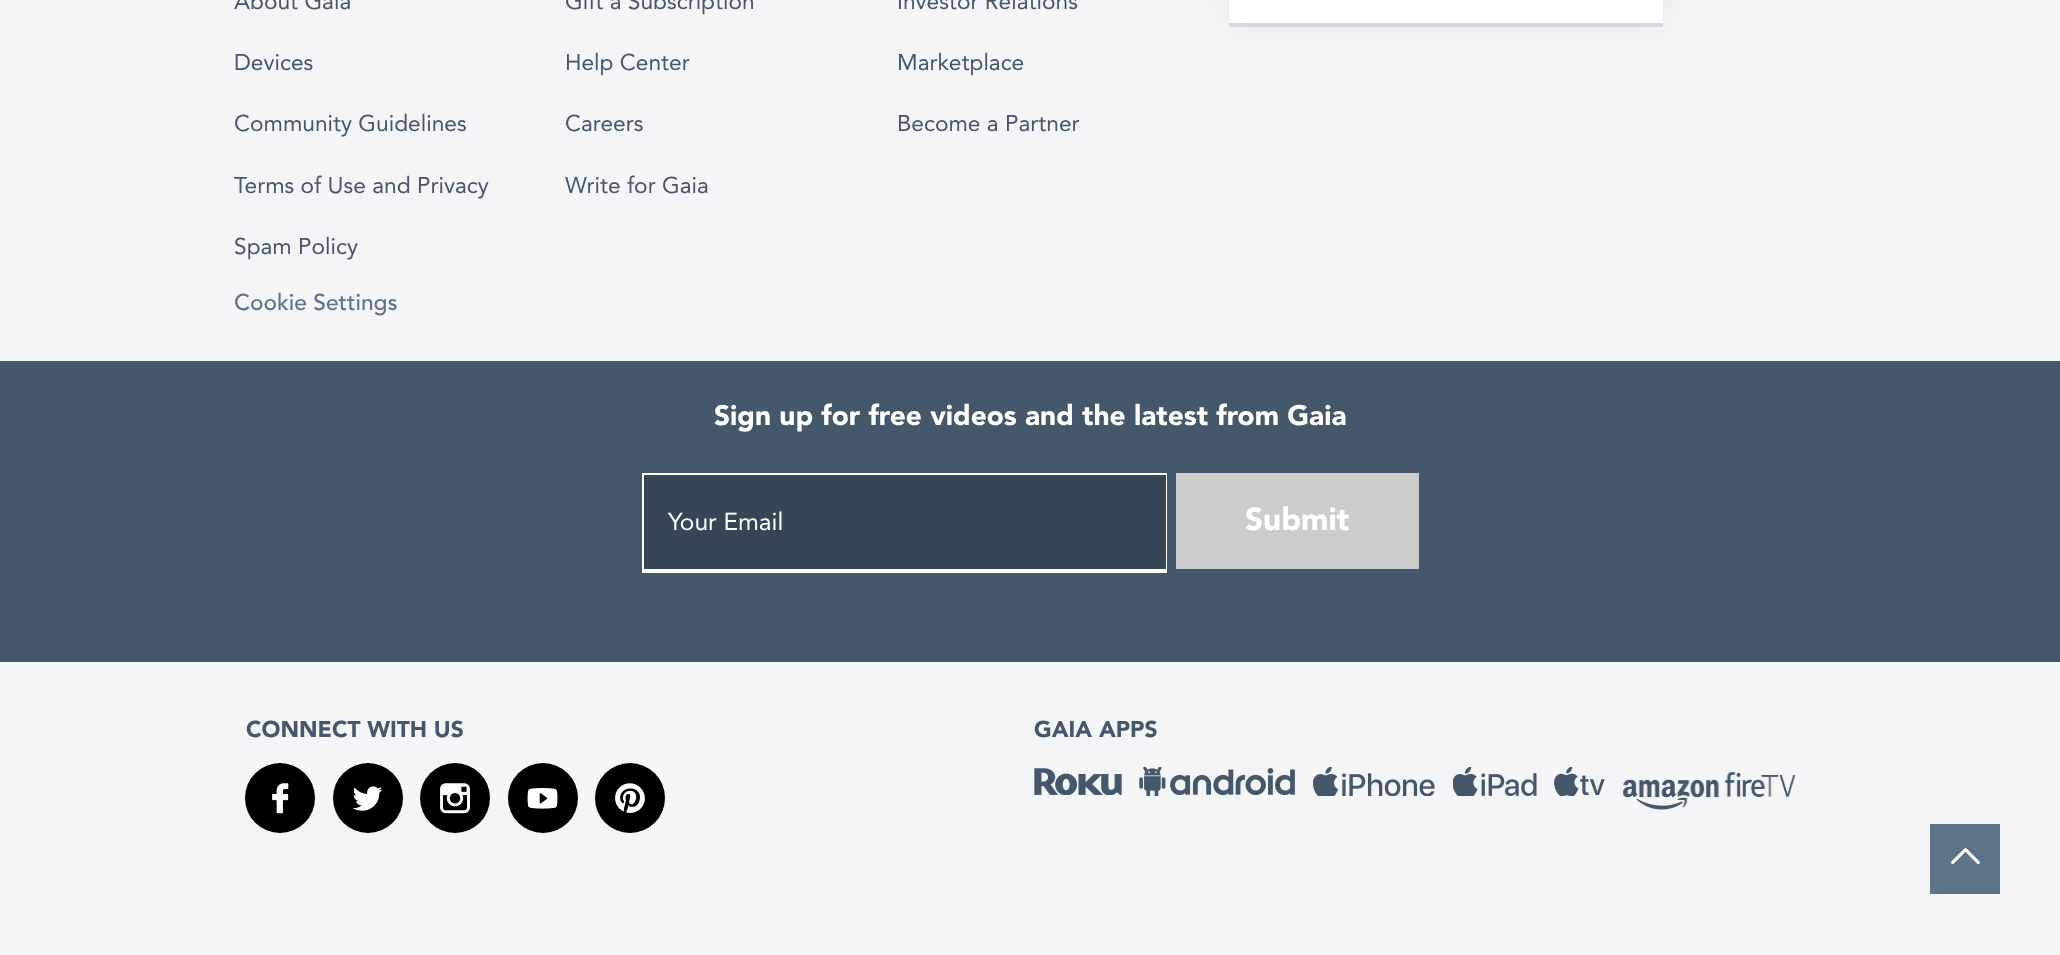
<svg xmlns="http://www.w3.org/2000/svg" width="2060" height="955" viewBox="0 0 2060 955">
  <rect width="100%" height="100%" fill="#f4f5f6"/>
  <path d="M1229 -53h434v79H1229z" fill="#0000000d" filter="blur(17.5px)"/>
  <path d="M1229 0h434v23H1229z" fill="#fff"/>
  <path d="M1229 23h434v4H1229z" fill="#d1d9e2"/>
  <path d="M0 361h2060v301H0z" fill="#44576b"/>
  <path d="M644 475h522v94H644z" fill="#364656"/>
  <path d="M642 473h525v2H642z" fill="#fff"/>
  <path d="M1166 473h1v99H1166z" fill="#fff"/>
  <path d="M642 569h525v4H642z" fill="#fff"/>
  <path d="M642 473h2v99H642z" fill="#fff"/>
  <path d="M1176 473h243v96H1176z" fill="#ccc"/>
  <circle cx="280" cy="798" r="35" fill="#000"/>
  <image x="272" y="783" width="17" height="31" href="img/1.png"/>
  <circle cx="368" cy="798" r="35" fill="#000"/>
  <image x="352" y="786" width="31" height="25" href="img/2.png"/>
  <circle cx="455" cy="798" r="35" fill="#000"/>
  <image x="440" y="783" width="30" height="31" href="img/3.png"/>
  <circle cx="543" cy="798" r="35" fill="#000"/>
  <image x="527" y="788" width="31" height="21" href="img/4.png"/>
  <circle cx="630" cy="798" r="35" fill="#000"/>
  <image x="615" y="783" width="30" height="30" href="img/5.png"/>
  <image x="1034" y="768" width="88" height="27" href="img/6.png"/>
  <image x="1139" y="767" width="156" height="29" href="img/7.png"/>
  <image x="1313" y="767" width="122" height="29" href="img/8.png"/>
  <image x="1453" y="767" width="84" height="29" href="img/9.png"/>
  <image x="1554" y="767" width="51" height="29" href="img/10.png"/>
  <image x="1623" y="772" width="173" height="38" href="img/11.png"/>
  <path d="M1930 824h70v70H1930z" fill="#5c738a"/>
  <image x="1951" y="848" width="29" height="16" href="img/12.png"/>
  <g font-family="Avenir" font-size="22.75" fill="#44576b">
    <text x="234" y="9">About Gaia</text>
    <text x="234" y="70">Devices</text>
    <text x="234" y="131">Community Guidelines</text>
    <text x="234" y="193">Terms of Use and Privacy</text>
    <text x="234" y="254">Spam Policy</text>
  </g>
  <text x="234" y="310" font-family="Avenir" font-size="22.75" font-weight="500" fill="#5c738a">Cookie Settings</text>
  <g font-family="Avenir" font-size="22.75" fill="#44576b">
    <text x="565" y="9">Gift a Subscription</text>
    <text x="565" y="70">Help Center</text>
    <text x="565" y="131">Careers</text>
    <text x="565" y="193">Write for Gaia</text>
    <text x="897" y="9">Investor Relations</text>
    <text x="897" y="70">Marketplace</text>
    <text x="897" y="131">Become a Partner</text>
  </g>
  <text x="714" y="425" font-family="Avenir" font-size="28" font-weight="900" fill="#fff">Sign up for free videos and the latest from Gaia</text>
  <text x="668" y="530" font-family="Avenir" font-size="24.5" fill="#fff">Your Email</text>
  <text x="1245" y="530" font-family="Avenir" font-size="31.5" font-weight="900" fill="#fff">Submit</text>
  <g font-family="Avenir" font-size="22.75" font-weight="900" fill="#44576b">
    <text x="246" y="737">CONNECT WITH US</text>
    <text x="1034" y="737">GAIA APPS</text>
  </g>
</svg>
